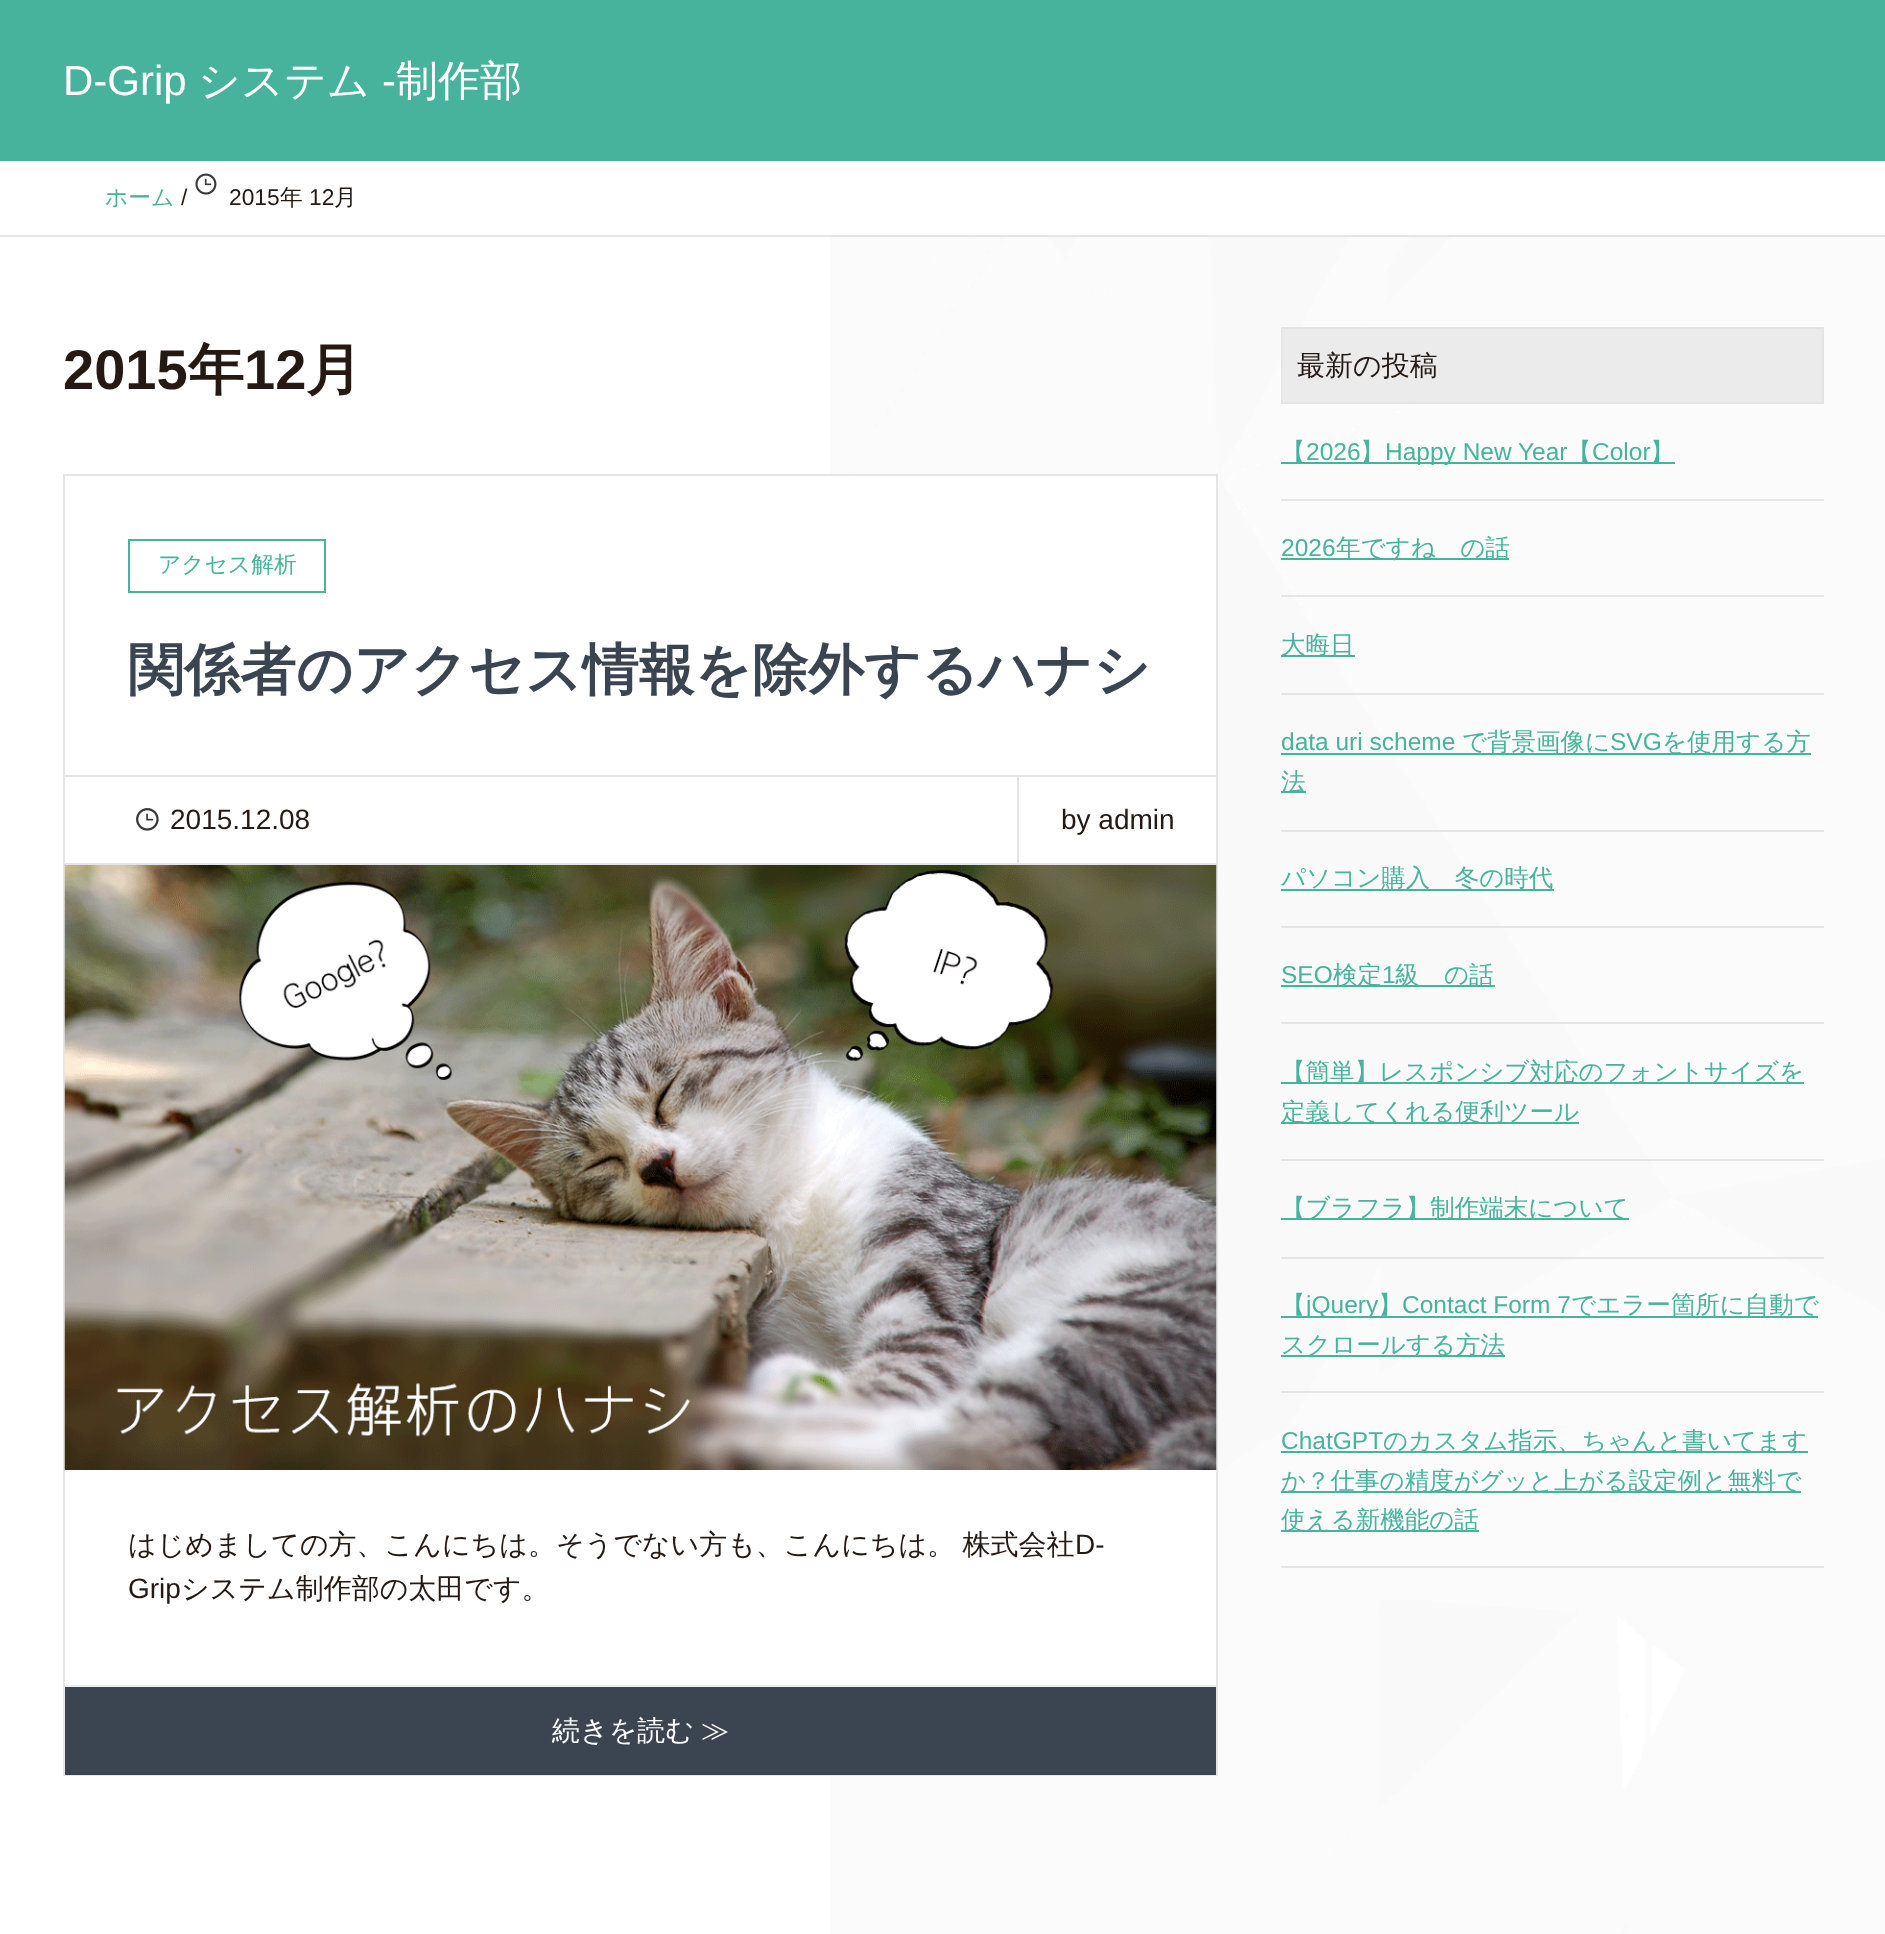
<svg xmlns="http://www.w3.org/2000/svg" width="1885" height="1934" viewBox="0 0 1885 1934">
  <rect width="100%" height="100%" fill="#fff"/>
  <image x="830" y="237" width="1055" height="1697" href="img/1.png"/>
  <path d="M0 0h1885v161H0z" fill="#47b39d"/>
  <path d="M0 235h1885v2H0z" fill="#e5e5e5"/>
  <image x="195" y="173" width="22" height="22" href="img/2.png"/>
  <path d="M830 476h386v1209H830z" fill="#fff"/>
  <path d="M64 475h1153v1300H64z" fill="none" stroke="#e5e5e5" stroke-width="2"/>
  <path d="M65 775h1151v2H65z" fill="#e5e5e5"/>
  <path d="M129 540h196v52H129z" fill="none" stroke="#47b39d" stroke-width="2"/>
  <image x="64" y="864" width="1153" height="606" href="img/4.png"/>
  <path d="M65 863h1151v2H65z" fill="#e5e5e5"/>
  <image x="136" y="808" width="23" height="23" href="img/3.png"/>
  <path d="M1017 777h2v86H1017z" fill="#e5e5e5"/>
  <path d="M65 1685h1151v2H65z" fill="#eee"/>
  <path d="M65 1687h1151v88H65z" fill="#3b4552"/>
  <path d="M1282 328h541v75H1282z" fill="#ebebeb" stroke="#e4e4e4" stroke-width="2"/>
  <path d="M1281 499h543v2H1281z" fill="#e5e5e5"/>
  <path d="M1281 462h394v2H1281z" fill="#47b39d"/>
  <path d="M1281 595h543v2H1281z" fill="#e5e5e5"/>
  <path d="M1281 558h228v2H1281z" fill="#47b39d"/>
  <path d="M1281 693h543v2H1281z" fill="#e5e5e5"/>
  <path d="M1281 655h74v2H1281z" fill="#47b39d"/>
  <path d="M1281 830h543v2H1281z" fill="#e5e5e5"/>
  <path d="M1281 753h530v2H1281z" fill="#47b39d"/>
  <path d="M1281 791h25v2H1281z" fill="#47b39d"/>
  <path d="M1281 926h543v2H1281z" fill="#e5e5e5"/>
  <path d="M1281 889h273v2H1281z" fill="#47b39d"/>
  <path d="M1281 1022h543v2H1281z" fill="#e5e5e5"/>
  <path d="M1281 985h214v2H1281z" fill="#47b39d"/>
  <path d="M1281 1159h543v2H1281z" fill="#e5e5e5"/>
  <path d="M1281 1082h523v2H1281z" fill="#47b39d"/>
  <path d="M1281 1122h298v2H1281z" fill="#47b39d"/>
  <path d="M1281 1257h543v2H1281z" fill="#e5e5e5"/>
  <path d="M1281 1218h348v2H1281z" fill="#47b39d"/>
  <path d="M1281 1391h543v2H1281z" fill="#e5e5e5"/>
  <path d="M1281 1316h537v2H1281z" fill="#47b39d"/>
  <path d="M1281 1355h224v2H1281z" fill="#47b39d"/>
  <path d="M1281 1566h543v2H1281z" fill="#e5e5e5"/>
  <path d="M1281 1451h527v2H1281z" fill="#47b39d"/>
  <path d="M1281 1491h520v2H1281z" fill="#47b39d"/>
  <path d="M1281 1530h198v2H1281z" fill="#47b39d"/>
  <text x="63" y="95" font-family="Liberation Sans" font-size="42" fill="#fff">D-Grip</text>
  <text x="198" y="95" font-family="WenQuanYi Zen Hei" font-size="42" font-weight="500" fill="#fff">システム</text>
  <text x="382" y="95" font-family="Liberation Sans" font-size="42" fill="#fff">-</text>
  <text x="396" y="95" font-family="WenQuanYi Zen Hei" font-size="42" font-weight="500" fill="#fff">制作部</text>
  <text x="105" y="205" font-family="WenQuanYi Zen Hei" font-size="22.75" font-weight="500" fill="#47b39d">ホーム</text>
  <g font-family="Liberation Sans" font-size="22.75" fill="#241913">
    <text x="181" y="205">/</text>
    <text x="229" y="205">2015</text>
  </g>
  <text x="280" y="205" font-family="WenQuanYi Zen Hei" font-size="22.75" font-weight="500" fill="#241913">年</text>
  <text x="309" y="205" font-family="Liberation Sans" font-size="22.75" fill="#241913">12</text>
  <text x="334" y="205" font-family="WenQuanYi Zen Hei" font-size="22.75" font-weight="500" fill="#241913">月</text>
  <text x="63" y="389" font-family="Liberation Sans" font-size="56" font-weight="bold" fill="#241913">2015</text>
  <text x="188" y="389" font-family="WenQuanYi Zen Hei" font-size="56" font-weight="bold" fill="#241913">年</text>
  <text x="244" y="389" font-family="Liberation Sans" font-size="56" font-weight="bold" fill="#241913">12</text>
  <text x="306" y="389" font-family="WenQuanYi Zen Hei" font-size="56" font-weight="bold" fill="#241913">月</text>
  <text x="158" y="572" font-family="WenQuanYi Zen Hei" font-size="22.75" font-weight="500" fill="#47b39d">アクセス解析</text>
  <text x="128" y="689" font-family="WenQuanYi Zen Hei" font-size="56" font-weight="bold" fill="#3b4552">関係者のアクセス情報を除外するハナシ</text>
  <g font-family="Liberation Sans" font-size="28" fill="#241913">
    <text x="170" y="829">2015.12.08</text>
    <text x="1061" y="829">by admin</text>
  </g>
  <text x="128" y="1554" word-spacing="-1" font-family="WenQuanYi Zen Hei" font-size="28" font-weight="500" fill="#241913">はじめましての方、こんにちは。そうでない方も、こんにちは。 株式会社</text>
  <g font-family="Liberation Sans" font-size="28" fill="#241913">
    <text x="1075" y="1554">D-</text>
    <text x="128" y="1598">Grip</text>
  </g>
  <text x="181" y="1598" font-family="WenQuanYi Zen Hei" font-size="28" font-weight="500" fill="#241913">システム制作部の太田です。</text>
  <text x="552" y="1740" word-spacing="-1" font-family="WenQuanYi Zen Hei" font-size="28" font-weight="500" fill="#fff">続きを読む ≫</text>
  <text x="1297" y="375" font-family="WenQuanYi Zen Hei" font-size="28" font-weight="500" fill="#241913">最新の投稿</text>
  <text x="1281" y="460" font-family="WenQuanYi Zen Hei" font-size="24.5" font-weight="500" fill="#47b39d">【</text>
  <text x="1306" y="460" font-family="Liberation Sans" font-size="24.5" fill="#47b39d">2026</text>
  <text x="1360" y="460" font-family="WenQuanYi Zen Hei" font-size="24.5" font-weight="500" fill="#47b39d">】</text>
  <text x="1385" y="460" font-family="Liberation Sans" font-size="24.5" fill="#47b39d">Happy New Year</text>
  <text x="1567" y="460" font-family="WenQuanYi Zen Hei" font-size="24.5" font-weight="500" fill="#47b39d">【</text>
  <text x="1592" y="460" font-family="Liberation Sans" font-size="24.5" fill="#47b39d">Color</text>
  <text x="1650" y="460" font-family="WenQuanYi Zen Hei" font-size="24.5" font-weight="500" fill="#47b39d">】</text>
  <text x="1281" y="556" font-family="Liberation Sans" font-size="24.5" fill="#47b39d">2026</text>
  <g font-family="WenQuanYi Zen Hei" font-size="24.5" font-weight="500" fill="#47b39d">
    <text x="1336" y="556">年ですね　の話</text>
    <text x="1281" y="653">大晦日</text>
  </g>
  <text x="1281" y="750" font-family="Liberation Sans" font-size="24.5" fill="#47b39d">data uri scheme</text>
  <text x="1462" y="750" font-family="WenQuanYi Zen Hei" font-size="24.5" font-weight="500" fill="#47b39d">で背景画像に</text>
  <text x="1610" y="750" font-family="Liberation Sans" font-size="24.5" fill="#47b39d">SVG</text>
  <g font-family="WenQuanYi Zen Hei" font-size="24.5" font-weight="500" fill="#47b39d">
    <text x="1662" y="750">を使用する方</text>
    <text x="1281" y="790">法</text>
    <text x="1281" y="886">パソコン購入　冬の時代</text>
  </g>
  <text x="1281" y="983" font-family="Liberation Sans" font-size="24.5" fill="#47b39d">SEO</text>
  <text x="1333" y="983" font-family="WenQuanYi Zen Hei" font-size="24.5" font-weight="500" fill="#47b39d">検定</text>
  <text x="1382" y="983" font-family="Liberation Sans" font-size="24.5" fill="#47b39d">1</text>
  <g font-family="WenQuanYi Zen Hei" font-size="24.5" font-weight="500" fill="#47b39d">
    <text x="1395" y="983">級　の話</text>
    <text x="1281" y="1080">【簡単】レスポンシブ対応のフォントサイズを</text>
    <text x="1281" y="1120">定義してくれる便利ツール</text>
    <text x="1281" y="1216">【ブラフラ】制作端末について</text>
    <text x="1281" y="1313">【</text>
  </g>
  <text x="1306" y="1313" font-family="Liberation Sans" font-size="24.5" fill="#47b39d">jQuery</text>
  <text x="1378" y="1313" font-family="WenQuanYi Zen Hei" font-size="24.5" font-weight="500" fill="#47b39d">】</text>
  <text x="1402" y="1313" font-family="Liberation Sans" font-size="24.5" fill="#47b39d">Contact Form 7</text>
  <g font-family="WenQuanYi Zen Hei" font-size="24.5" font-weight="500" fill="#47b39d">
    <text x="1571" y="1313">でエラー箇所に自動で</text>
    <text x="1281" y="1353">スクロールする方法</text>
  </g>
  <text x="1281" y="1449" font-family="Liberation Sans" font-size="24.5" fill="#47b39d">ChatGPT</text>
  <g font-family="WenQuanYi Zen Hei" font-size="24.5" font-weight="500" fill="#47b39d">
    <text x="1383" y="1449">のカスタム指示、ちゃんと書いてます</text>
    <text x="1281" y="1489">か？仕事の精度がグッと上がる設定例と無料で</text>
    <text x="1281" y="1528">使える新機能の話</text>
  </g>
</svg>
